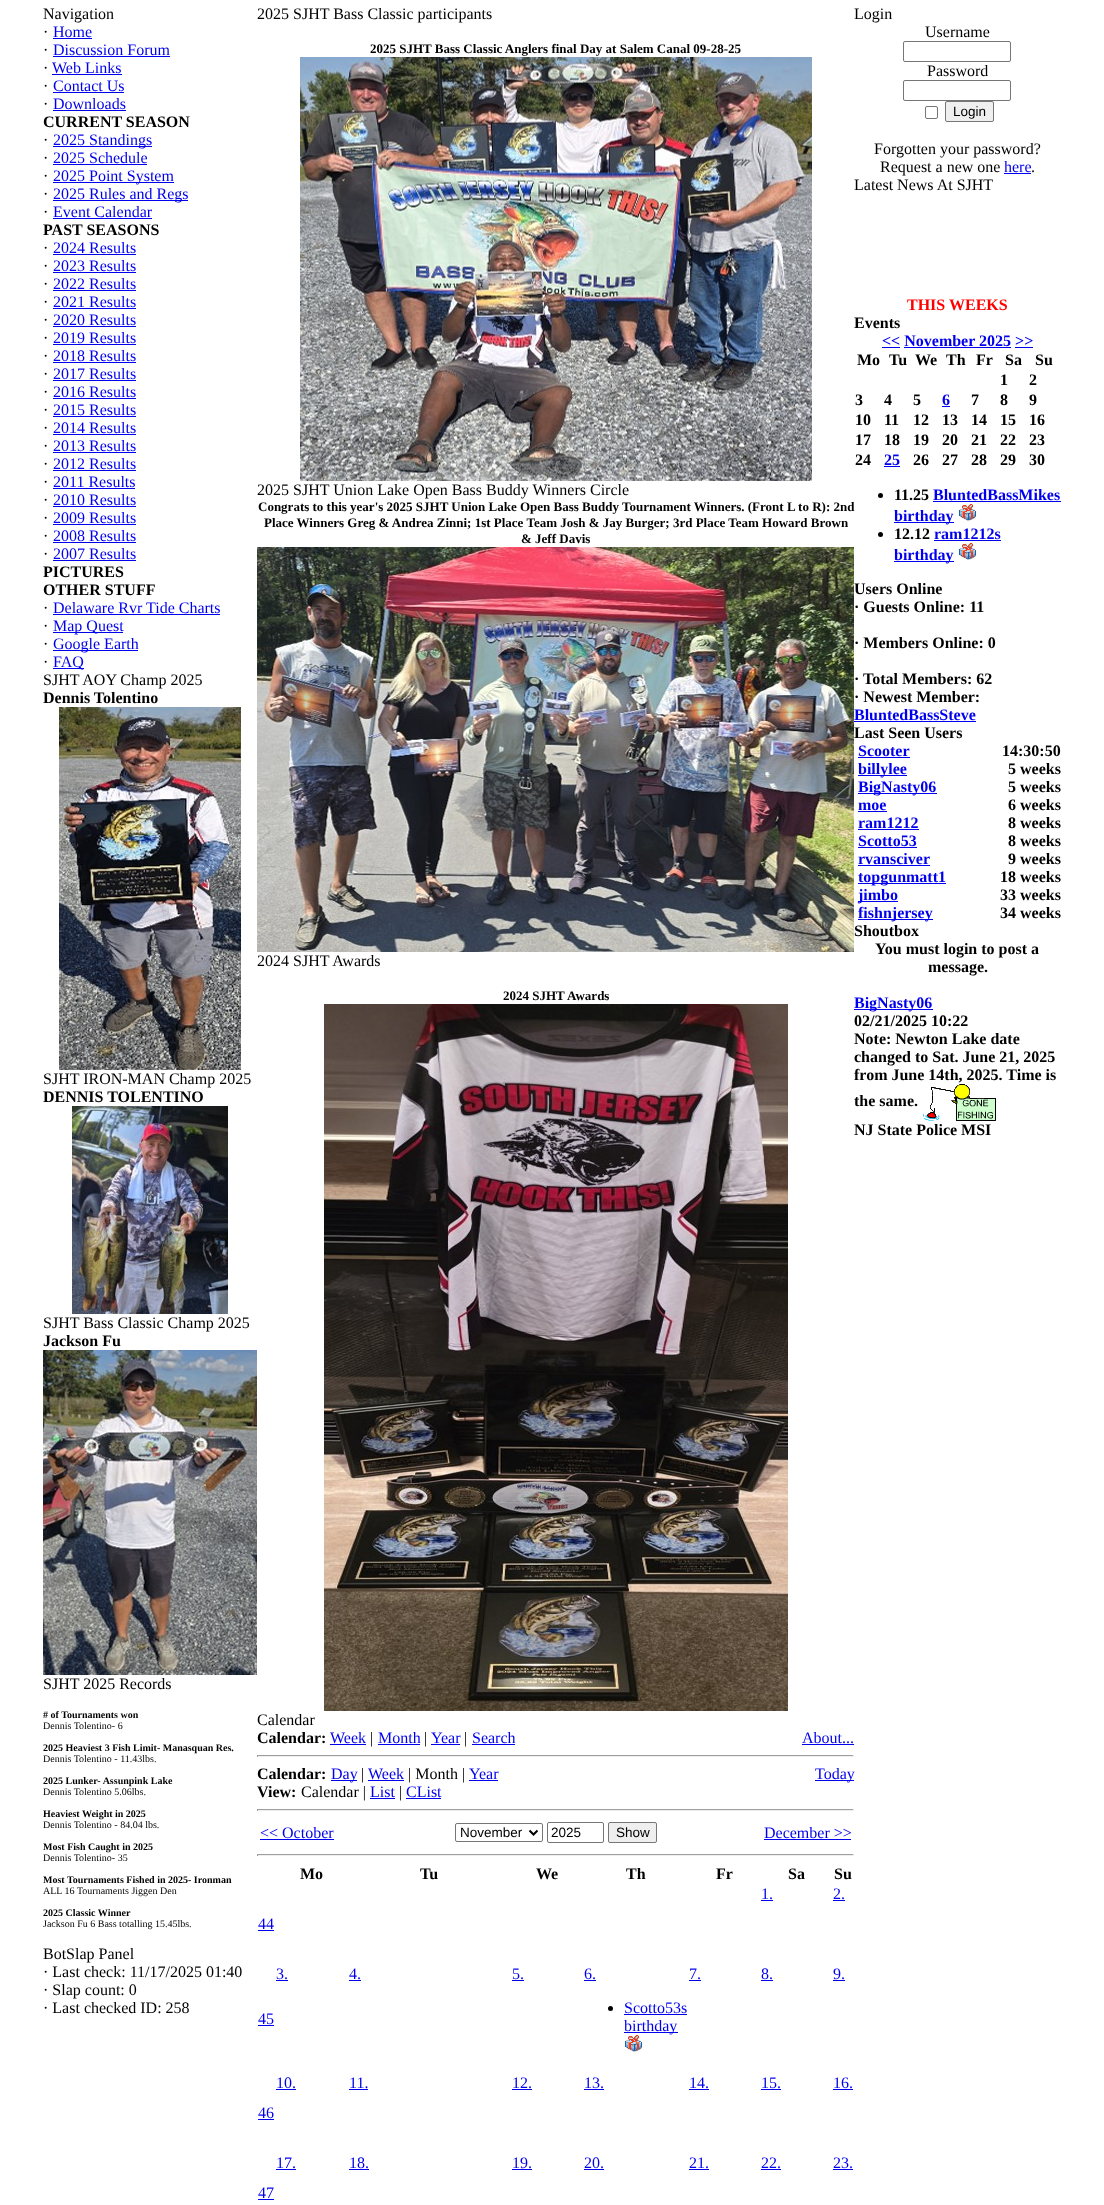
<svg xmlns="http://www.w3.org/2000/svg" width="1104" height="2205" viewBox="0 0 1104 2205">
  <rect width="100%" height="100%" fill="#fff"/>
  <path d="M53 38h39v1H53z" fill="#00e"/>
  <path d="M53 56h117v1H53z" fill="#00e"/>
  <path d="M52 74h70v1H52z" fill="#00e"/>
  <path d="M53 92h71v1H53z" fill="#00e"/>
  <path d="M53 110h73v1H53z" fill="#00e"/>
  <path d="M53 146h99v1H53z" fill="#00e"/>
  <path d="M53 164h94v1H53z" fill="#00e"/>
  <path d="M53 182h121v1H53z" fill="#00e"/>
  <path d="M53 200h135v1H53z" fill="#00e"/>
  <path d="M53 218h99v1H53z" fill="#00e"/>
  <path d="M53 254h83v1H53z" fill="#00e"/>
  <path d="M53 272h83v1H53z" fill="#00e"/>
  <path d="M53 290h83v1H53z" fill="#00e"/>
  <path d="M53 308h83v1H53z" fill="#00e"/>
  <path d="M53 326h83v1H53z" fill="#00e"/>
  <path d="M53 344h83v1H53z" fill="#00e"/>
  <path d="M53 362h83v1H53z" fill="#00e"/>
  <path d="M53 380h83v1H53z" fill="#00e"/>
  <path d="M53 398h83v1H53z" fill="#00e"/>
  <path d="M53 416h83v1H53z" fill="#00e"/>
  <path d="M53 434h83v1H53z" fill="#00e"/>
  <path d="M53 452h83v1H53z" fill="#00e"/>
  <path d="M53 470h83v1H53z" fill="#00e"/>
  <path d="M53 488h82v1H53z" fill="#00e"/>
  <path d="M53 506h83v1H53z" fill="#00e"/>
  <path d="M53 524h83v1H53z" fill="#00e"/>
  <path d="M53 542h83v1H53z" fill="#00e"/>
  <path d="M53 560h83v1H53z" fill="#00e"/>
  <path d="M53 614h167v1H53z" fill="#00e"/>
  <path d="M53 632h70v1H53z" fill="#00e"/>
  <path d="M53 650h85v1H53z" fill="#00e"/>
  <path d="M53 668h31v1H53z" fill="#00e"/>
  <image x="59" y="707" width="182" height="363" href="img/1.png"/>
  <image x="72" y="1106" width="156" height="208" href="img/2.png"/>
  <image x="43" y="1350" width="214" height="325" href="img/3.png"/>
  <image x="300" y="57" width="512" height="424" href="img/4.png"/>
  <image x="257" y="547" width="597" height="405" href="img/5.png"/>
  <image x="324" y="1004" width="464" height="707" href="img/6.png"/>
  <path d="M330 1744h36v1H330z" fill="#00e"/>
  <path d="M378 1744h42v1H378z" fill="#00e"/>
  <path d="M431 1744h29v1H431z" fill="#00e"/>
  <path d="M472 1744h43v1H472z" fill="#00e"/>
  <path d="M802 1744h52v1H802z" fill="#00e"/>
  <path d="M257 1755h597v1H257z" fill="#9f9f9f"/>
  <path d="M853 1755h1v2H853z" fill="#eee"/>
  <path d="M257 1756h597v1H257z" fill="#eee"/>
  <path d="M257 1755h1v2H257z" fill="#9f9f9f"/>
  <path d="M331 1780h26v1H331z" fill="#00e"/>
  <path d="M368 1780h36v1H368z" fill="#00e"/>
  <path d="M469 1780h29v1H469z" fill="#00e"/>
  <path d="M370 1798h25v1H370z" fill="#00e"/>
  <path d="M406 1798h35v1H406z" fill="#00e"/>
  <path d="M815 1780h39v1H815z" fill="#00e"/>
  <path d="M257 1809h597v1H257z" fill="#9f9f9f"/>
  <path d="M853 1809h1v2H853z" fill="#eee"/>
  <path d="M257 1810h597v1H257z" fill="#eee"/>
  <path d="M257 1809h1v2H257z" fill="#9f9f9f"/>
  <path d="M260 1839h74v1H260z" fill="#00e"/>
  <rect x="455.5" y="1823.5" width="87" height="18" rx="1.5" fill="none" stroke="#767676"/>
  <path d="M529.5 1830.5L533.5 1834.5L537.5 1830.5" fill="none" stroke="#000" stroke-width="2"/>
  <rect x="547.5" y="1822.5" width="56" height="20" rx="1.5" fill="none" stroke="#767676"/>
  <rect x="608.5" y="1822.5" width="48" height="20" rx="1.5" fill="#efefef" stroke="#767676"/>
  <path d="M764 1839h87v1H764z" fill="#00e"/>
  <path d="M257 1854h597v1H257z" fill="#9f9f9f"/>
  <path d="M853 1854h1v2H853z" fill="#eee"/>
  <path d="M257 1855h597v1H257z" fill="#eee"/>
  <path d="M257 1854h1v2H257z" fill="#9f9f9f"/>
  <path d="M761 1900h12v1H761z" fill="#00e"/>
  <path d="M833 1900h12v1H833z" fill="#00e"/>
  <path d="M258 1930h16v1H258z" fill="#00e"/>
  <path d="M276 1980h12v1H276z" fill="#00e"/>
  <path d="M349 1980h12v1H349z" fill="#00e"/>
  <path d="M512 1980h12v1H512z" fill="#00e"/>
  <path d="M584 1980h12v1H584z" fill="#00e"/>
  <circle cx="610.5" cy="2008.5" r="2.5" fill="#000"/>
  <path d="M624 2014h63v1H624z" fill="#00e"/>
  <path d="M624 2032h54v1H624z" fill="#00e"/>
  <image x="625" y="2035" width="18" height="17" href="img/7.png"/>
  <path d="M689 1980h12v1H689z" fill="#00e"/>
  <path d="M761 1980h12v1H761z" fill="#00e"/>
  <path d="M833 1980h12v1H833z" fill="#00e"/>
  <path d="M258 2025h16v1H258z" fill="#00e"/>
  <path d="M276 2089h20v1H276z" fill="#00e"/>
  <path d="M349 2089h19v1H349z" fill="#00e"/>
  <path d="M512 2089h20v1H512z" fill="#00e"/>
  <path d="M584 2089h20v1H584z" fill="#00e"/>
  <path d="M689 2089h20v1H689z" fill="#00e"/>
  <path d="M761 2089h20v1H761z" fill="#00e"/>
  <path d="M833 2089h20v1H833z" fill="#00e"/>
  <path d="M258 2119h16v1H258z" fill="#00e"/>
  <path d="M276 2169h20v1H276z" fill="#00e"/>
  <path d="M349 2169h20v1H349z" fill="#00e"/>
  <path d="M512 2169h20v1H512z" fill="#00e"/>
  <path d="M584 2169h20v1H584z" fill="#00e"/>
  <path d="M689 2169h20v1H689z" fill="#00e"/>
  <path d="M761 2169h20v1H761z" fill="#00e"/>
  <path d="M833 2169h20v1H833z" fill="#00e"/>
  <path d="M258 2199h16v1H258z" fill="#00e"/>
  <rect x="903.5" y="41.5" width="107" height="20" rx="1.5" fill="none" stroke="#767676"/>
  <rect x="903.5" y="80.5" width="107" height="20" rx="1.5" fill="none" stroke="#767676"/>
  <rect x="925.5" y="106.5" width="12" height="12" rx="1.5" fill="none" stroke="#767676"/>
  <rect x="945.5" y="101.5" width="48" height="20" rx="1.5" fill="#efefef" stroke="#767676"/>
  <path d="M1004 173h27v1H1004z" fill="#00e"/>
  <path d="M882 347h18v1H882z" fill="#00e"/>
  <path d="M904 347h107v1H904z" fill="#00e"/>
  <path d="M1015 347h18v1H1015z" fill="#00e"/>
  <path d="M942 406h8v1H942z" fill="#00e"/>
  <path d="M884 466h16v1H884z" fill="#00e"/>
  <circle cx="880.5" cy="495.5" r="2.5" fill="#000"/>
  <path d="M933 501h128v1H933z" fill="#00e"/>
  <path d="M894 522h60v1H894z" fill="#00e"/>
  <image x="959" y="504" width="18" height="17" href="img/7.png"/>
  <circle cx="880.5" cy="534.5" r="2.5" fill="#000"/>
  <path d="M934 540h67v1H934z" fill="#00e"/>
  <path d="M894 561h60v1H894z" fill="#00e"/>
  <image x="959" y="543" width="18" height="17" href="img/7.png"/>
  <path d="M854 721h122v1H854z" fill="#00e"/>
  <path d="M858 757h52v1H858z" fill="#00e"/>
  <path d="M858 775h49v1H858z" fill="#00e"/>
  <path d="M858 793h79v1H858z" fill="#00e"/>
  <path d="M858 811h29v1H858z" fill="#00e"/>
  <path d="M858 829h61v1H858z" fill="#00e"/>
  <path d="M858 847h59v1H858z" fill="#00e"/>
  <path d="M858 865h72v1H858z" fill="#00e"/>
  <path d="M858 883h88v1H858z" fill="#00e"/>
  <path d="M858 901h40v1H858z" fill="#00e"/>
  <path d="M858 919h75v1H858z" fill="#00e"/>
  <path d="M854 1009h79v1H854z" fill="#00e"/>
  <image x="923" y="1084" width="73" height="37" href="img/8.png"/>
  <g font-family="Liberation Serif" font-size="16" fill="#000">
    <text x="43" y="19">Navigation</text>
    <text x="43" y="37">·</text>
  </g>
  <text x="53" y="37" font-family="Liberation Serif" font-size="16" fill="#00e">Home</text>
  <text x="43" y="55" font-family="Liberation Serif" font-size="16" fill="#000">·</text>
  <text x="53" y="55" font-family="Liberation Serif" font-size="16" fill="#00e">Discussion Forum</text>
  <text x="43" y="73" font-family="Liberation Serif" font-size="16" fill="#000">·</text>
  <text x="52" y="73" font-family="Liberation Serif" font-size="16" fill="#00e">Web Links</text>
  <text x="43" y="91" font-family="Liberation Serif" font-size="16" fill="#000">·</text>
  <text x="53" y="91" font-family="Liberation Serif" font-size="16" fill="#00e">Contact Us</text>
  <text x="43" y="109" font-family="Liberation Serif" font-size="16" fill="#000">·</text>
  <text x="53" y="109" font-family="Liberation Serif" font-size="16" fill="#00e">Downloads</text>
  <text x="43" y="127" font-family="Liberation Serif" font-size="16" font-weight="bold" fill="#000">CURRENT SEASON</text>
  <text x="43" y="145" font-family="Liberation Serif" font-size="16" fill="#000">·</text>
  <text x="53" y="145" font-family="Liberation Serif" font-size="16" fill="#00e">2025 Standings</text>
  <text x="43" y="163" font-family="Liberation Serif" font-size="16" fill="#000">·</text>
  <text x="53" y="163" font-family="Liberation Serif" font-size="16" fill="#00e">2025 Schedule</text>
  <text x="43" y="181" font-family="Liberation Serif" font-size="16" fill="#000">·</text>
  <text x="53" y="181" font-family="Liberation Serif" font-size="16" fill="#00e">2025 Point System</text>
  <text x="43" y="199" font-family="Liberation Serif" font-size="16" fill="#000">·</text>
  <text x="53" y="199" font-family="Liberation Serif" font-size="16" fill="#00e">2025 Rules and Regs</text>
  <text x="43" y="217" font-family="Liberation Serif" font-size="16" fill="#000">·</text>
  <text x="53" y="217" font-family="Liberation Serif" font-size="16" fill="#00e">Event Calendar</text>
  <text x="43" y="235" font-family="Liberation Serif" font-size="16" font-weight="bold" fill="#000">PAST SEASONS</text>
  <text x="43" y="253" font-family="Liberation Serif" font-size="16" fill="#000">·</text>
  <text x="53" y="253" font-family="Liberation Serif" font-size="16" fill="#00e">2024 Results</text>
  <text x="43" y="271" font-family="Liberation Serif" font-size="16" fill="#000">·</text>
  <text x="53" y="271" font-family="Liberation Serif" font-size="16" fill="#00e">2023 Results</text>
  <text x="43" y="289" font-family="Liberation Serif" font-size="16" fill="#000">·</text>
  <text x="53" y="289" font-family="Liberation Serif" font-size="16" fill="#00e">2022 Results</text>
  <text x="43" y="307" font-family="Liberation Serif" font-size="16" fill="#000">·</text>
  <text x="53" y="307" font-family="Liberation Serif" font-size="16" fill="#00e">2021 Results</text>
  <text x="43" y="325" font-family="Liberation Serif" font-size="16" fill="#000">·</text>
  <text x="53" y="325" font-family="Liberation Serif" font-size="16" fill="#00e">2020 Results</text>
  <text x="43" y="343" font-family="Liberation Serif" font-size="16" fill="#000">·</text>
  <text x="53" y="343" font-family="Liberation Serif" font-size="16" fill="#00e">2019 Results</text>
  <text x="43" y="361" font-family="Liberation Serif" font-size="16" fill="#000">·</text>
  <text x="53" y="361" font-family="Liberation Serif" font-size="16" fill="#00e">2018 Results</text>
  <text x="43" y="379" font-family="Liberation Serif" font-size="16" fill="#000">·</text>
  <text x="53" y="379" font-family="Liberation Serif" font-size="16" fill="#00e">2017 Results</text>
  <text x="43" y="397" font-family="Liberation Serif" font-size="16" fill="#000">·</text>
  <text x="53" y="397" font-family="Liberation Serif" font-size="16" fill="#00e">2016 Results</text>
  <text x="43" y="415" font-family="Liberation Serif" font-size="16" fill="#000">·</text>
  <text x="53" y="415" font-family="Liberation Serif" font-size="16" fill="#00e">2015 Results</text>
  <text x="43" y="433" font-family="Liberation Serif" font-size="16" fill="#000">·</text>
  <text x="53" y="433" font-family="Liberation Serif" font-size="16" fill="#00e">2014 Results</text>
  <text x="43" y="451" font-family="Liberation Serif" font-size="16" fill="#000">·</text>
  <text x="53" y="451" font-family="Liberation Serif" font-size="16" fill="#00e">2013 Results</text>
  <text x="43" y="469" font-family="Liberation Serif" font-size="16" fill="#000">·</text>
  <text x="53" y="469" font-family="Liberation Serif" font-size="16" fill="#00e">2012 Results</text>
  <text x="43" y="487" font-family="Liberation Serif" font-size="16" fill="#000">·</text>
  <text x="53" y="487" font-family="Liberation Serif" font-size="16" fill="#00e">2011 Results</text>
  <text x="43" y="505" font-family="Liberation Serif" font-size="16" fill="#000">·</text>
  <text x="53" y="505" font-family="Liberation Serif" font-size="16" fill="#00e">2010 Results</text>
  <text x="43" y="523" font-family="Liberation Serif" font-size="16" fill="#000">·</text>
  <text x="53" y="523" font-family="Liberation Serif" font-size="16" fill="#00e">2009 Results</text>
  <text x="43" y="541" font-family="Liberation Serif" font-size="16" fill="#000">·</text>
  <text x="53" y="541" font-family="Liberation Serif" font-size="16" fill="#00e">2008 Results</text>
  <text x="43" y="559" font-family="Liberation Serif" font-size="16" fill="#000">·</text>
  <text x="53" y="559" font-family="Liberation Serif" font-size="16" fill="#00e">2007 Results</text>
  <g font-family="Liberation Serif" font-size="16" font-weight="bold" fill="#000">
    <text x="43" y="577">PICTURES</text>
    <text x="43" y="595">OTHER STUFF</text>
  </g>
  <text x="43" y="613" font-family="Liberation Serif" font-size="16" fill="#000">·</text>
  <text x="53" y="613" font-family="Liberation Serif" font-size="16" fill="#00e">Delaware Rvr Tide Charts</text>
  <text x="43" y="631" font-family="Liberation Serif" font-size="16" fill="#000">·</text>
  <text x="53" y="631" font-family="Liberation Serif" font-size="16" fill="#00e">Map Quest</text>
  <text x="43" y="649" font-family="Liberation Serif" font-size="16" fill="#000">·</text>
  <text x="53" y="649" font-family="Liberation Serif" font-size="16" fill="#00e">Google Earth</text>
  <text x="43" y="667" font-family="Liberation Serif" font-size="16" fill="#000">·</text>
  <text x="53" y="667" font-family="Liberation Serif" font-size="16" fill="#00e">FAQ</text>
  <text x="43" y="685" font-family="Liberation Serif" font-size="16" fill="#000">SJHT AOY Champ 2025</text>
  <text x="43" y="703" font-family="Liberation Serif" font-size="16" font-weight="bold" fill="#000">Dennis Tolentino</text>
  <text x="43" y="1084" font-family="Liberation Serif" font-size="16" fill="#000">SJHT IRON-MAN Champ 2025</text>
  <text x="43" y="1102" font-family="Liberation Serif" font-size="16" font-weight="bold" fill="#000">DENNIS TOLENTINO</text>
  <text x="43" y="1328" font-family="Liberation Serif" font-size="16" fill="#000">SJHT Bass Classic Champ 2025</text>
  <text x="43" y="1346" font-family="Liberation Serif" font-size="16" font-weight="bold" fill="#000">Jackson Fu</text>
  <text x="43" y="1689" font-family="Liberation Serif" font-size="16" fill="#000">SJHT 2025 Records</text>
  <text x="43" y="1718" font-family="Liberation Serif" font-size="10" font-weight="bold" fill="#000"># of Tournaments won</text>
  <text x="43" y="1729" font-family="Liberation Serif" font-size="10" fill="#000">Dennis Tolentino- 6</text>
  <text x="43" y="1751" font-family="Liberation Serif" font-size="10" font-weight="bold" fill="#000">2025 Heaviest 3 Fish Limit- Manasquan Res.</text>
  <text x="43" y="1762" font-family="Liberation Serif" font-size="10" fill="#000">Dennis Tolentino - 11.43lbs.</text>
  <text x="43" y="1784" font-family="Liberation Serif" font-size="10" font-weight="bold" fill="#000">2025 Lunker- Assunpink Lake</text>
  <text x="43" y="1795" font-family="Liberation Serif" font-size="10" fill="#000">Dennis Tolentino 5.06lbs.</text>
  <text x="43" y="1817" font-family="Liberation Serif" font-size="10" font-weight="bold" fill="#000">Heaviest Weight in 2025</text>
  <text x="43" y="1828" font-family="Liberation Serif" font-size="10" fill="#000">Dennis Tolentino - 84.04 lbs.</text>
  <text x="43" y="1850" font-family="Liberation Serif" font-size="10" font-weight="bold" fill="#000">Most Fish Caught in 2025</text>
  <text x="43" y="1861" font-family="Liberation Serif" font-size="10" fill="#000">Dennis Tolentino- 35</text>
  <text x="43" y="1883" font-family="Liberation Serif" font-size="10" font-weight="bold" fill="#000">Most Tournaments Fished in 2025- Ironman</text>
  <text x="43" y="1894" font-family="Liberation Serif" font-size="10" fill="#000">ALL 16 Tournaments Jiggen Den</text>
  <text x="43" y="1916" font-family="Liberation Serif" font-size="10" font-weight="bold" fill="#000">2025 Classic Winner</text>
  <text x="43" y="1927" font-family="Liberation Serif" font-size="10" fill="#000">Jackson Fu 6 Bass totalling 15.45lbs.</text>
  <g font-family="Liberation Serif" font-size="16" fill="#000">
    <text x="43" y="1959">BotSlap Panel</text>
    <text x="43" y="1977">· Last check: 11/17/2025 01:40</text>
    <text x="43" y="1995">· Slap count: 0</text>
    <text x="43" y="2013">· Last checked ID: 258</text>
    <text x="257" y="19">2025 SJHT Bass Classic participants</text>
  </g>
  <text x="370" y="53" font-family="Liberation Serif" font-size="13" font-weight="bold" fill="#000">2025 SJHT Bass Classic Anglers final Day at Salem Canal 09-28-25</text>
  <text x="257" y="495" font-family="Liberation Serif" font-size="16" fill="#000">2025 SJHT Union Lake Open Bass Buddy Winners Circle</text>
  <g font-family="Liberation Serif" font-size="13" font-weight="bold" fill="#000">
    <text x="258" y="511">Congrats to this year's 2025 SJHT Union Lake Open Bass Buddy Tournament Winners. (Front L to R): 2nd</text>
    <text x="264" y="527">Place Winners Greg &amp; Andrea Zinni; 1st Place Team Josh &amp; Jay Burger; 3rd Place Team Howard Brown</text>
    <text x="521" y="543">&amp; Jeff Davis</text>
  </g>
  <text x="257" y="966" font-family="Liberation Serif" font-size="16" fill="#000">2024 SJHT Awards</text>
  <text x="503" y="1000" font-family="Liberation Serif" font-size="13" font-weight="bold" fill="#000">2024 SJHT Awards</text>
  <text x="257" y="1725" font-family="Liberation Serif" font-size="16" fill="#000">Calendar</text>
  <text x="257" y="1743" font-family="Liberation Serif" font-size="16" font-weight="bold" fill="#000">Calendar:</text>
  <text x="330" y="1743" font-family="Liberation Serif" font-size="16" fill="#00e">Week</text>
  <text x="370" y="1743" font-family="Liberation Serif" font-size="16" fill="#000">|</text>
  <text x="378" y="1743" font-family="Liberation Serif" font-size="16" fill="#00e">Month</text>
  <text x="424" y="1743" font-family="Liberation Serif" font-size="16" fill="#000">|</text>
  <text x="431" y="1743" font-family="Liberation Serif" font-size="16" fill="#00e">Year</text>
  <text x="464" y="1743" font-family="Liberation Serif" font-size="16" fill="#000">|</text>
  <g font-family="Liberation Serif" font-size="16" fill="#00e">
    <text x="472" y="1743">Search</text>
    <text x="802" y="1743">About...</text>
  </g>
  <text x="257" y="1779" font-family="Liberation Serif" font-size="16" font-weight="bold" fill="#000">Calendar:</text>
  <text x="331" y="1779" font-family="Liberation Serif" font-size="16" fill="#00e">Day</text>
  <text x="361" y="1779" font-family="Liberation Serif" font-size="16" fill="#000">|</text>
  <text x="368" y="1779" font-family="Liberation Serif" font-size="16" fill="#00e">Week</text>
  <text x="408" y="1779" font-family="Liberation Serif" font-size="16" fill="#000">| Month |</text>
  <text x="469" y="1779" font-family="Liberation Serif" font-size="16" fill="#00e">Year</text>
  <text x="257" y="1797" font-family="Liberation Serif" font-size="16" font-weight="bold" fill="#000">View:</text>
  <text x="301" y="1797" font-family="Liberation Serif" font-size="16" fill="#000">Calendar |</text>
  <text x="370" y="1797" font-family="Liberation Serif" font-size="16" fill="#00e">List</text>
  <text x="399" y="1797" font-family="Liberation Serif" font-size="16" fill="#000">|</text>
  <g font-family="Liberation Serif" font-size="16" fill="#00e">
    <text x="406" y="1797">CList</text>
    <text x="815" y="1779">Today</text>
    <text x="260" y="1838">&lt;&lt; October</text>
  </g>
  <g font-family="Liberation Sans" font-size="13.5" fill="#000">
    <text x="460" y="1837">November</text>
    <text x="551" y="1837">2025</text>
    <text x="616" y="1837">Show</text>
  </g>
  <text x="764" y="1838" font-family="Liberation Serif" font-size="16" fill="#00e">December &gt;&gt;</text>
  <g font-family="Liberation Serif" font-size="16" font-weight="bold" fill="#000">
    <text x="300" y="1879">Mo</text>
    <text x="420" y="1879">Tu</text>
    <text x="536" y="1879">We</text>
    <text x="626" y="1879">Th</text>
    <text x="716" y="1879">Fr</text>
    <text x="788" y="1879">Sa</text>
    <text x="834" y="1879">Su</text>
  </g>
  <g font-family="Liberation Serif" font-size="16" fill="#00e">
    <text x="761" y="1899">1.</text>
    <text x="833" y="1899">2.</text>
    <text x="258" y="1929">44</text>
    <text x="276" y="1979">3.</text>
    <text x="349" y="1979">4.</text>
    <text x="512" y="1979">5.</text>
    <text x="584" y="1979">6.</text>
    <text x="624" y="2013">Scotto53s</text>
    <text x="624" y="2031">birthday</text>
    <text x="689" y="1979">7.</text>
    <text x="761" y="1979">8.</text>
    <text x="833" y="1979">9.</text>
    <text x="258" y="2024">45</text>
    <text x="276" y="2088">10.</text>
    <text x="349" y="2088">11.</text>
    <text x="512" y="2088">12.</text>
    <text x="584" y="2088">13.</text>
    <text x="689" y="2088">14.</text>
    <text x="761" y="2088">15.</text>
    <text x="833" y="2088">16.</text>
    <text x="258" y="2118">46</text>
    <text x="276" y="2168">17.</text>
    <text x="349" y="2168">18.</text>
    <text x="512" y="2168">19.</text>
    <text x="584" y="2168">20.</text>
    <text x="689" y="2168">21.</text>
    <text x="761" y="2168">22.</text>
    <text x="833" y="2168">23.</text>
    <text x="258" y="2198">47</text>
  </g>
  <g font-family="Liberation Serif" font-size="16" fill="#000">
    <text x="854" y="19">Login</text>
    <text x="925" y="37">Username</text>
    <text x="927" y="76">Password</text>
  </g>
  <text x="953" y="116" font-family="Liberation Sans" font-size="13.5" fill="#000">Login</text>
  <g font-family="Liberation Serif" font-size="16" fill="#000">
    <text x="874" y="154">Forgotten your password?</text>
    <text x="880" y="172">Request a new one</text>
  </g>
  <text x="1004" y="172" font-family="Liberation Serif" font-size="16" fill="#00e">here</text>
  <g font-family="Liberation Serif" font-size="16" fill="#000">
    <text x="1031" y="172">.</text>
    <text x="854" y="190">Latest News At SJHT</text>
  </g>
  <text x="907" y="310" font-family="Liberation Serif" font-size="16" font-weight="bold" fill="#f00">THIS WEEKS</text>
  <text x="854" y="328" font-family="Liberation Serif" font-size="16" font-weight="bold" fill="#000">Events</text>
  <text x="882" y="346" font-family="Liberation Serif" font-size="16" font-weight="bold" fill="#00e">&lt;&lt; November 2025 &gt;&gt;</text>
  <g font-family="Liberation Serif" font-size="16" font-weight="bold" fill="#000">
    <text x="857" y="365">Mo</text>
    <text x="889" y="365">Tu</text>
    <text x="915" y="365">We</text>
    <text x="946" y="365">Th</text>
    <text x="976" y="365">Fr</text>
    <text x="1005" y="365">Sa</text>
    <text x="1035" y="365">Su</text>
    <text x="1000" y="385">1</text>
    <text x="1029" y="385">2</text>
    <text x="855" y="405">3</text>
    <text x="884" y="405">4</text>
    <text x="913" y="405">5</text>
  </g>
  <text x="942" y="405" font-family="Liberation Serif" font-size="16" font-weight="bold" fill="#00e">6</text>
  <g font-family="Liberation Serif" font-size="16" font-weight="bold" fill="#000">
    <text x="971" y="405">7</text>
    <text x="1000" y="405">8</text>
    <text x="1029" y="405">9</text>
    <text x="855" y="425">10</text>
    <text x="884" y="425">11</text>
    <text x="913" y="425">12</text>
    <text x="942" y="425">13</text>
    <text x="971" y="425">14</text>
    <text x="1000" y="425">15</text>
    <text x="1029" y="425">16</text>
    <text x="855" y="445">17</text>
    <text x="884" y="445">18</text>
    <text x="913" y="445">19</text>
    <text x="942" y="445">20</text>
    <text x="971" y="445">21</text>
    <text x="1000" y="445">22</text>
    <text x="1029" y="445">23</text>
    <text x="855" y="465">24</text>
  </g>
  <text x="884" y="465" font-family="Liberation Serif" font-size="16" font-weight="bold" fill="#00e">25</text>
  <g font-family="Liberation Serif" font-size="16" font-weight="bold" fill="#000">
    <text x="913" y="465">26</text>
    <text x="942" y="465">27</text>
    <text x="971" y="465">28</text>
    <text x="1000" y="465">29</text>
    <text x="1029" y="465">30</text>
    <text x="894" y="500">11.25</text>
  </g>
  <g font-family="Liberation Serif" font-size="16" font-weight="bold" fill="#00e">
    <text x="933" y="500">BluntedBassMikes</text>
    <text x="894" y="521">birthday</text>
  </g>
  <text x="894" y="539" font-family="Liberation Serif" font-size="16" font-weight="bold" fill="#000">12.12</text>
  <g font-family="Liberation Serif" font-size="16" font-weight="bold" fill="#00e">
    <text x="934" y="539">ram1212s</text>
    <text x="894" y="560">birthday</text>
  </g>
  <g font-family="Liberation Serif" font-size="16" font-weight="bold" fill="#000">
    <text x="854" y="594">Users Online</text>
    <text x="854" y="612">· Guests Online: 11</text>
    <text x="854" y="648">· Members Online: 0</text>
    <text x="854" y="684">· Total Members: 62</text>
    <text x="854" y="702">· Newest Member:</text>
  </g>
  <text x="854" y="720" font-family="Liberation Serif" font-size="16" font-weight="bold" fill="#00e">BluntedBassSteve</text>
  <text x="854" y="738" font-family="Liberation Serif" font-size="16" font-weight="bold" fill="#000">Last Seen Users</text>
  <text x="858" y="756" font-family="Liberation Serif" font-size="16" font-weight="bold" fill="#00e">Scooter</text>
  <text x="1002" y="756" font-family="Liberation Serif" font-size="16" font-weight="bold" fill="#000">14:30:50</text>
  <text x="858" y="774" font-family="Liberation Serif" font-size="16" font-weight="bold" fill="#00e">billylee</text>
  <text x="1008" y="774" font-family="Liberation Serif" font-size="16" font-weight="bold" fill="#000">5 weeks</text>
  <text x="858" y="792" font-family="Liberation Serif" font-size="16" font-weight="bold" fill="#00e">BigNasty06</text>
  <text x="1008" y="792" font-family="Liberation Serif" font-size="16" font-weight="bold" fill="#000">5 weeks</text>
  <text x="858" y="810" font-family="Liberation Serif" font-size="16" font-weight="bold" fill="#00e">moe</text>
  <text x="1008" y="810" font-family="Liberation Serif" font-size="16" font-weight="bold" fill="#000">6 weeks</text>
  <text x="858" y="828" font-family="Liberation Serif" font-size="16" font-weight="bold" fill="#00e">ram1212</text>
  <text x="1008" y="828" font-family="Liberation Serif" font-size="16" font-weight="bold" fill="#000">8 weeks</text>
  <text x="858" y="846" font-family="Liberation Serif" font-size="16" font-weight="bold" fill="#00e">Scotto53</text>
  <text x="1008" y="846" font-family="Liberation Serif" font-size="16" font-weight="bold" fill="#000">8 weeks</text>
  <text x="858" y="864" font-family="Liberation Serif" font-size="16" font-weight="bold" fill="#00e">rvansciver</text>
  <text x="1008" y="864" font-family="Liberation Serif" font-size="16" font-weight="bold" fill="#000">9 weeks</text>
  <text x="858" y="882" font-family="Liberation Serif" font-size="16" font-weight="bold" fill="#00e">topgunmatt1</text>
  <text x="1000" y="882" font-family="Liberation Serif" font-size="16" font-weight="bold" fill="#000">18 weeks</text>
  <text x="858" y="900" font-family="Liberation Serif" font-size="16" font-weight="bold" fill="#00e">jimbo</text>
  <text x="1000" y="900" font-family="Liberation Serif" font-size="16" font-weight="bold" fill="#000">33 weeks</text>
  <text x="858" y="918" font-family="Liberation Serif" font-size="16" font-weight="bold" fill="#00e">fishnjersey</text>
  <g font-family="Liberation Serif" font-size="16" font-weight="bold" fill="#000">
    <text x="1000" y="918">34 weeks</text>
    <text x="854" y="936">Shoutbox</text>
    <text x="875" y="954">You must login to post a</text>
    <text x="928" y="972">message.</text>
  </g>
  <text x="854" y="1008" font-family="Liberation Serif" font-size="16" font-weight="bold" fill="#00e">BigNasty06</text>
  <g font-family="Liberation Serif" font-size="16" font-weight="bold" fill="#000">
    <text x="854" y="1026">02/21/2025 10:22</text>
    <text x="854" y="1044">Note: Newton Lake date</text>
    <text x="854" y="1062">changed to Sat. June 21, 2025</text>
    <text x="854" y="1080">from June 14th, 2025. Time is</text>
    <text x="854" y="1106">the same.</text>
    <text x="854" y="1135">NJ State Police MSI</text>
  </g>
</svg>
